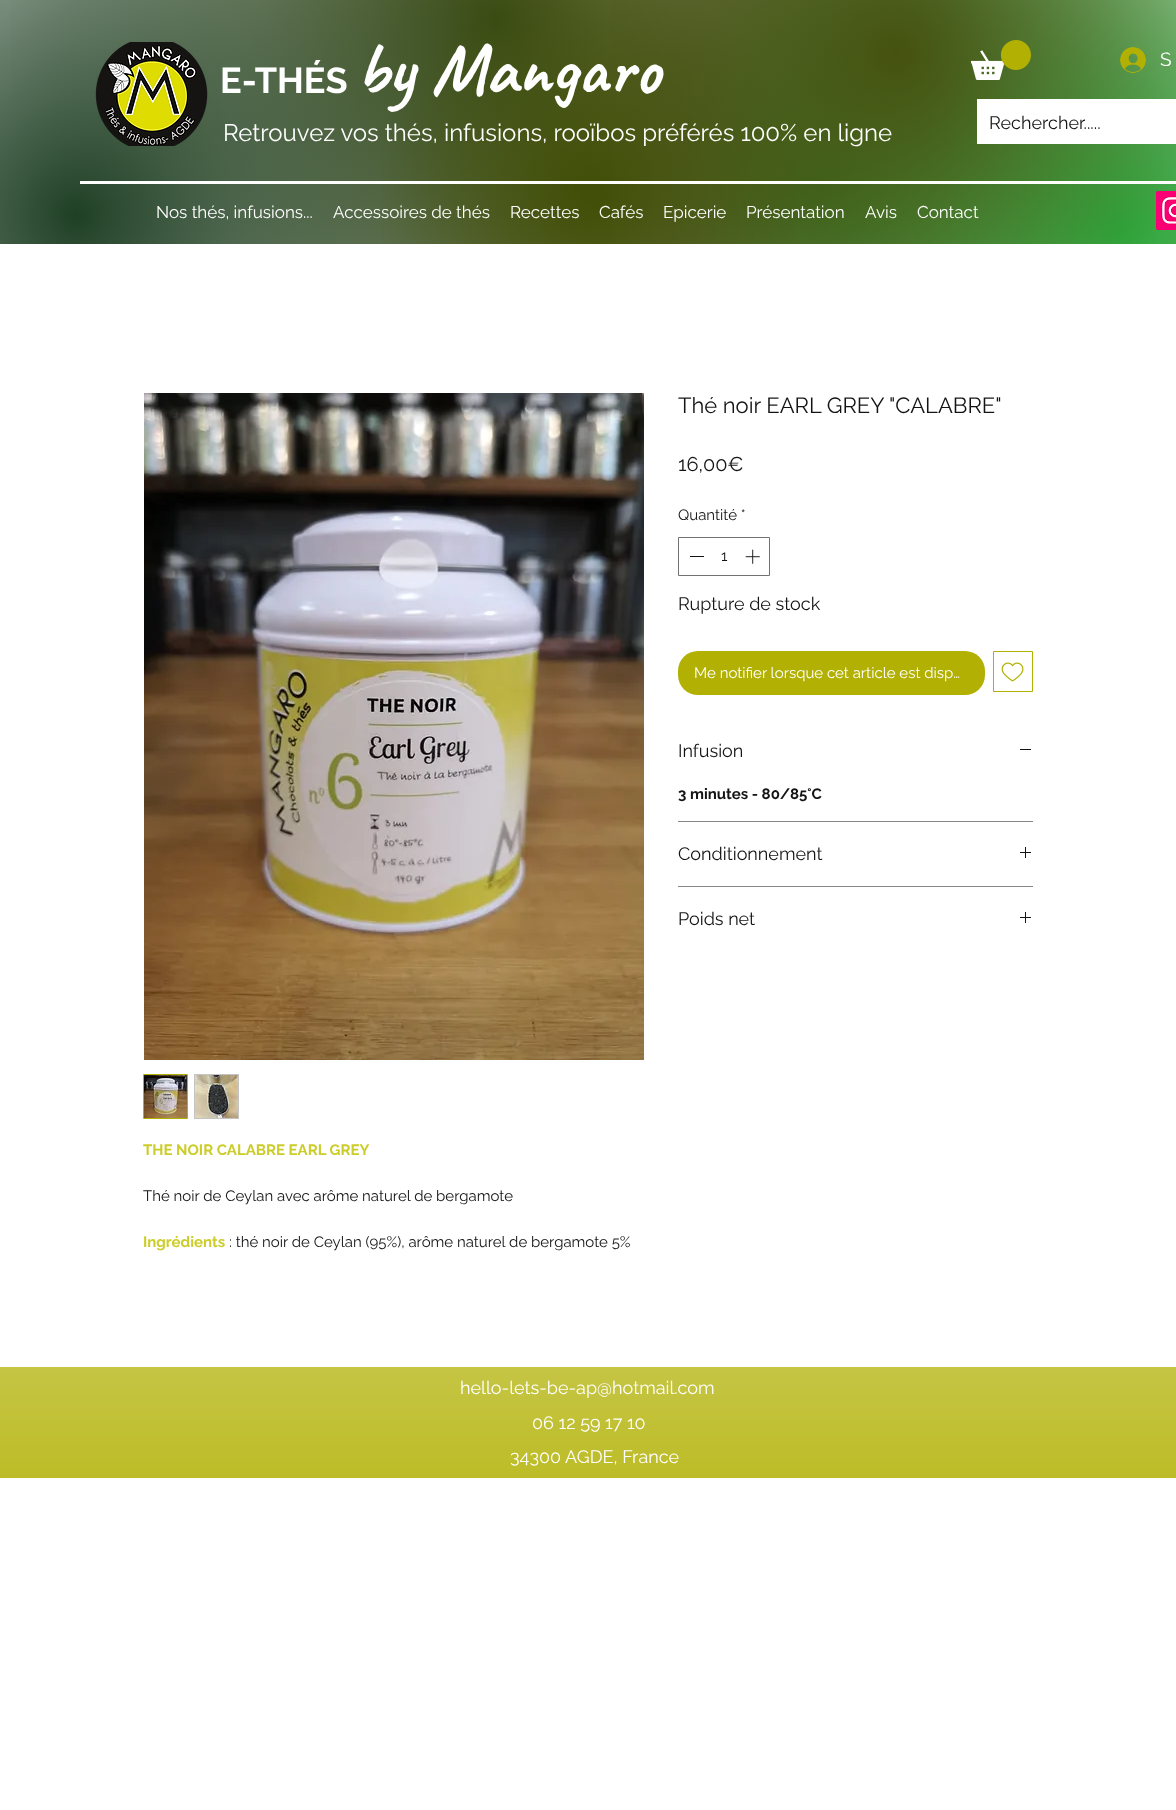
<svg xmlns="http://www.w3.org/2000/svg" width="1176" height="1810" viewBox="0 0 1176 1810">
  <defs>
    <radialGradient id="g1" gradientUnits="userSpaceOnUse" cx="816" cy="185" r="836"><stop offset="0" stop-color="#455318"/><stop offset="0.7" stop-color="#fff"/></radialGradient>
    <radialGradient id="g2" gradientUnits="userSpaceOnUse" cx="498" cy="19" r="714"><stop offset="0" stop-color="#404e10"/><stop offset="0.7" stop-color="#404e10" stop-opacity="0"/></radialGradient>
    <radialGradient id="g3" gradientUnits="userSpaceOnUse" cx="76" cy="215" r="1120"><stop offset="0" stop-color="#1d3e23" stop-opacity="0.99"/><stop offset="0.5" stop-color="#1d3e23" stop-opacity="0"/></radialGradient>
    <radialGradient id="g4" gradientUnits="userSpaceOnUse" cx="1120" cy="230" r="1144"><stop offset="0" stop-color="#2da93c"/><stop offset="0.4" stop-color="#2da93c" stop-opacity="0"/></radialGradient>
    <radialGradient id="g5" gradientUnits="userSpaceOnUse" cx="591" cy="193" r="622"><stop offset="0" stop-color="#414e06"/><stop offset="0.35" stop-color="#414e06" stop-opacity="0"/></radialGradient>
    <radialGradient id="g6" gradientUnits="userSpaceOnUse" cx="896" cy="54" r="916"><stop offset="0" stop-color="#465210"/><stop offset="0.35" stop-color="#465210" stop-opacity="0"/></radialGradient>
  </defs>
  <rect width="100%" height="100%" fill="#fff"/>
  <path d="M235 0h941v244H235z" fill="url(#g1)"/>
  <path d="M10 0h976v244H10z" fill="url(#g2)"/>
  <path d="M0 0h612v244H0z" fill="url(#g3)"/>
  <path d="M676 0h500v244H676z" fill="url(#g4)"/>
  <path d="M381 0h415v244H381z" fill="url(#g5)"/>
  <path d="M611 0h565v244H611z" fill="url(#g6)"/>
  <image x="95" y="42" width="113" height="104" href="img/1.png"/>
  <image x="971" y="40" width="60" height="40" href="img/2.png"/>
  <image x="1120" y="47" width="26" height="26" href="img/3.png"/>
  <path d="M977 99h199v45H977z" fill="#fff"/>
  <path d="M80 181h1096v3H80z" fill="#fff"/>
  <image x="1156" y="191" width="20" height="39" href="img/4.png"/>
  <path d="M678.5 537.5h91v38H678.5z" fill="none" stroke="#727272"/>
  <path d="M690 556h14v1H690z" fill="#141414"/>
  <image x="745" y="549" width="15" height="15" href="img/5.png"/>
  <rect x="678" y="651" width="307" height="44" rx="20" fill="#b2b103"/>
  <path d="M993.5 651.5h39v40H993.5z" fill="none" stroke="#b2b103"/>
  <image x="1001" y="662" width="23" height="20" href="img/6.png"/>
  <path d="M678 821h355v1H678z" fill="#878787"/>
  <path d="M1020 749h11v1H1020z" fill="#141414"/>
  <path d="M678 886h355v1H678z" fill="#878787"/>
  <image x="1020" y="847" width="11" height="11" href="img/7.png"/>
  <image x="1020" y="912" width="11" height="11" href="img/7.png"/>
  <image x="144" y="393" width="500" height="667" href="img/8.png"/>
  <path d="M143.5 1074.5h44v44H143.5z" fill="none" stroke="#b2b103"/>
  <image x="144" y="1075" width="43" height="43" href="img/9.png"/>
  <path d="M194 1074h45v45H194z" fill="#c4c4c4"/>
  <image x="195" y="1075" width="43" height="43" href="img/10.png"/>
  <path d="M0 1367h1176v111H0z" fill="#b2b103"/>
  <image x="0" y="1367" width="1176" height="111" href="img/11.png"/>
  <text x="220" y="93" font-family="Raleway" font-size="36" font-weight="bold" fill="#fff">E-THÉS</text>
  <text x="356" y="93" font-family="Caveat" font-size="73" font-weight="bold" fill="#fff">by Mangaro</text>
  <text x="1160" y="66" font-family="Raleway" font-size="19" fill="#fff">S</text>
  <text x="223" y="141" font-family="Raleway" font-size="24" fill="#fff">Retrouvez vos thés, infusions, rooïbos préférés 100% en ligne</text>
  <text x="989" y="129" font-family="Raleway" font-size="18" fill="#141414">Rechercher.....</text>
  <g font-family="Raleway" font-size="17" fill="#fff">
    <text x="156" y="218">Nos thés, infusions...</text>
    <text x="333" y="218">Accessoires de thés</text>
    <text x="510" y="218">Recettes</text>
    <text x="599" y="218">Cafés</text>
    <text x="663" y="218">Epicerie</text>
    <text x="746" y="218">Présentation</text>
    <text x="865" y="218">Avis</text>
    <text x="917" y="218">Contact</text>
  </g>
  <text x="678" y="413" font-family="Raleway" font-size="22" fill="#141414">Thé noir EARL GREY "CALABRE"</text>
  <text x="678" y="471" font-family="Raleway" font-size="20" fill="#141414">16,00€</text>
  <g font-family="Raleway" font-size="15" fill="#141414">
    <text x="678" y="520">Quantité *</text>
    <text x="721" y="561">1</text>
  </g>
  <text x="678" y="610" font-family="Raleway" font-size="18" fill="#141414">Rupture de stock</text>
  <text x="694" y="678" font-family="Raleway" font-size="15" fill="#fff">Me notifier lorsque cet article est disp…</text>
  <text x="678" y="757" font-family="Raleway" font-size="18" fill="#141414">Infusion</text>
  <text x="678" y="799" font-family="Raleway" font-size="15" font-weight="bold" fill="#141414">3 minutes - 80/85°C</text>
  <g font-family="Raleway" font-size="18" fill="#141414">
    <text x="678" y="860">Conditionnement</text>
    <text x="678" y="925">Poids net</text>
  </g>
  <text x="143" y="1155" font-family="Raleway" font-size="15" font-weight="bold" fill="#cccd2a">THE NOIR CALABRE EARL GREY</text>
  <text x="143" y="1201" font-family="Raleway" font-size="15" fill="#141414">Thé noir de Ceylan avec arôme naturel de bergamote</text>
  <text x="143" y="1247" font-family="Raleway" font-size="15" font-weight="bold" fill="#cccd2a">Ingrédients</text>
  <text x="229" y="1247" font-family="Raleway" font-size="15" fill="#141414">: thé noir de Ceylan (95%), arôme naturel de bergamote 5%</text>
  <g font-family="Raleway" font-size="18" fill="#fff">
    <text x="460" y="1394">hello-lets-be-ap@hotmail.com</text>
    <text x="532" y="1429">06 12 59 17 10</text>
    <text x="510" y="1463">34300 AGDE, France</text>
  </g>
</svg>
